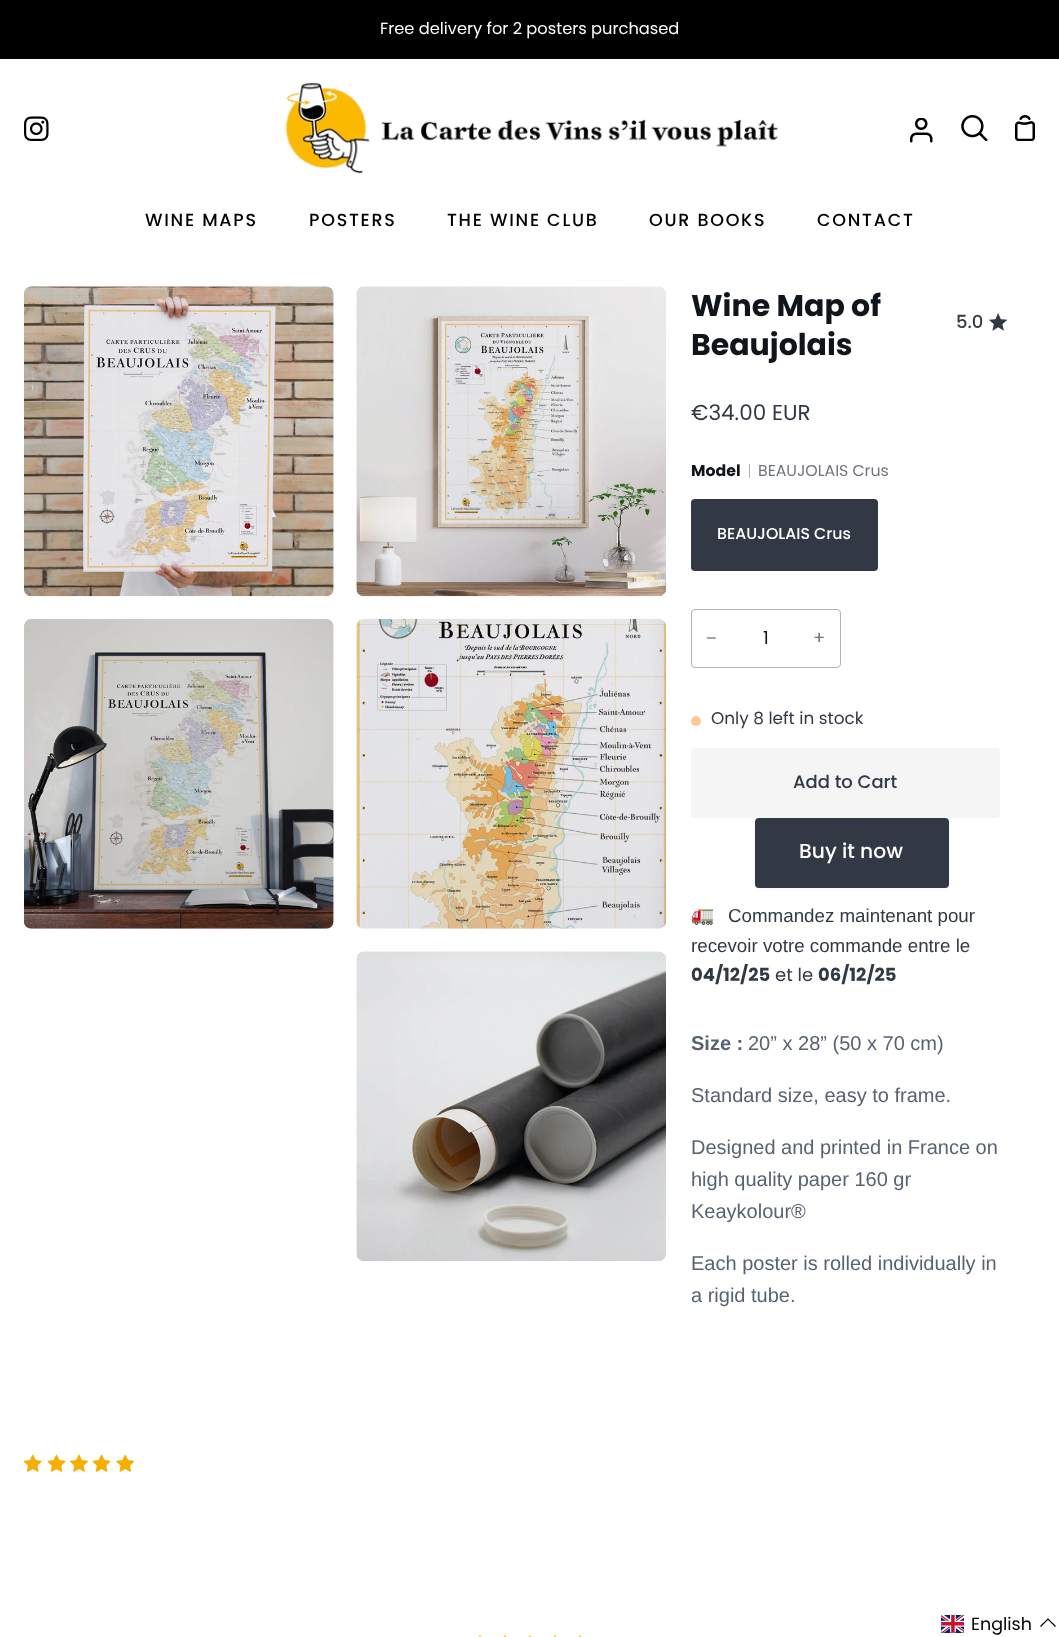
<svg xmlns="http://www.w3.org/2000/svg" width="1059" height="1637" viewBox="0 0 1059 1637">
  <rect width="100%" height="100%" fill="#fff"/>
  <path d="M0 0h1059v59H0z" fill="#000"/>
  <image x="24" y="116" width="25" height="25" href="img/1.png"/>
  <image x="285" y="82" width="493" height="92" href="img/2.png"/>
  <image x="910" y="118" width="23" height="25" href="img/3.png"/>
  <image x="961" y="115" width="27" height="26" href="img/4.png"/>
  <image x="1015" y="115" width="20" height="26" href="img/5.png"/>
  <image x="24" y="286" width="310" height="311" href="img/6.png"/>
  <image x="356" y="286" width="310" height="311" href="img/7.png"/>
  <image x="24" y="619" width="310" height="310" href="img/8.png"/>
  <image x="356" y="619" width="310" height="310" href="img/9.png"/>
  <image x="356" y="951" width="310" height="310" href="img/10.png"/>
  <image x="989" y="313" width="19" height="18" href="img/11.png"/>
  <path d="M749 464h1v14H749z" fill="#b3b3b3"/>
  <rect x="691" y="499" width="187" height="72" rx="4" fill="#323945"/>
  <rect x="691.5" y="609.5" width="149" height="58" rx="3.5" fill="none" stroke="#b3b3b3"/>
  <circle cx="696" cy="721" r="5" fill="#ffc896"/>
  <rect x="755" y="819" width="194" height="70" rx="4" fill="#3239450d" filter="blur(2px)"/>
  <rect x="691" y="748" width="309" height="70" rx="4" fill="#f5f5f6"/>
  <rect x="755" y="818" width="194" height="70" rx="4" fill="#323945"/>
  <image x="23" y="1454" width="19" height="18" href="img/12.png"/>
  <image x="47" y="1454" width="19" height="18" href="img/13.png"/>
  <image x="70" y="1454" width="18" height="18" href="img/14.png"/>
  <image x="92" y="1454" width="19" height="18" href="img/13.png"/>
  <image x="116" y="1454" width="19" height="18" href="img/15.png"/>
  <image x="479" y="1635" width="2" height="2" href="img/16.png"/>
  <image x="504" y="1635" width="2" height="2" href="img/16.png"/>
  <image x="529" y="1635" width="2" height="2" href="img/16.png"/>
  <image x="554" y="1635" width="2" height="2" href="img/16.png"/>
  <image x="579" y="1635" width="2" height="2" href="img/16.png"/>
  <image x="941" y="1615" width="23" height="18" href="img/17.png"/>
  <path d="M1055.5 1626.5L1048 1619L1040.5 1626.5" fill="none" stroke="#000" stroke-width="1.2"/>
  <text x="380" y="34" font-family="Poppins" font-size="16.25" fill="#fff">Free delivery for 2 posters purchased</text>
  <g font-family="Poppins" font-size="17.5" font-weight="500" letter-spacing="1.75" fill="#000">
    <text x="145" y="226">WINE MAPS</text>
    <text x="309" y="226">POSTERS</text>
    <text x="447" y="226">THE WINE CLUB</text>
    <text x="649" y="226">OUR BOOKS</text>
    <text x="817" y="226">CONTACT</text>
  </g>
  <g font-family="Poppins" font-size="30" font-weight="bold" fill="#10141b">
    <text x="691" y="316">Wine Map of</text>
    <text x="691" y="355">Beaujolais</text>
  </g>
  <text x="956" y="328" font-family="Poppins" font-size="18" font-weight="500" fill="#323945">5.0</text>
  <text x="691" y="420" font-family="Poppins" font-size="21.5" fill="#323945">€34.00 EUR</text>
  <text x="691" y="476" font-family="Poppins" font-size="15.75" font-weight="bold" fill="#10141b">Model</text>
  <text x="758" y="476" font-family="Poppins" font-size="15.75" fill="#70747d">BEAUJOLAIS Crus</text>
  <text x="717" y="539" font-family="Poppins" font-size="15.75" font-weight="500" fill="#fff">BEAUJOLAIS Crus</text>
  <text x="706" y="644" font-family="Liberation Sans" font-size="18" fill="#70747d">−</text>
  <text x="763" y="644" font-family="Poppins" font-size="18" fill="#10141b">1</text>
  <text x="813" y="644" font-family="Poppins" font-size="18" fill="#70747d">+</text>
  <text x="711" y="724" font-family="Poppins" font-size="16.9" fill="#323945">Only 8 left in stock</text>
  <text x="793" y="788" font-family="Poppins" font-size="18" font-weight="500" fill="#323945">Add to Cart</text>
  <text x="799" y="858" font-family="Poppins" font-size="20.25" font-weight="500" fill="#fff">Buy it now</text>
  <text x="691" y="921" font-family="Noto Color Emoji" font-size="18.75" fill="#17191b">🚛</text>
  <g font-family="Liberation Sans" font-size="18.75" fill="#323945">
    <text x="728" y="922">Commandez maintenant pour</text>
    <text x="691" y="952">recevoir votre commande entre le</text>
  </g>
  <text x="691" y="981" font-family="Poppins" font-size="18" font-weight="bold" fill="#323945">04/12/25</text>
  <text x="775" y="981" font-family="Poppins" font-size="18" fill="#323945">et le</text>
  <text x="818" y="981" font-family="Poppins" font-size="18" font-weight="bold" fill="#323945">06/12/25</text>
  <text x="691" y="1050" font-family="Liberation Sans" font-size="20" font-weight="bold" fill="#586272">Size :</text>
  <g font-family="Liberation Sans" font-size="20" fill="#586272">
    <text x="748" y="1050">20” x 28” (50 x 70 cm)</text>
    <text x="691" y="1102">Standard size, easy to frame.</text>
    <text x="691" y="1154">Designed and printed in France on</text>
    <text x="691" y="1186">high quality paper 160 gr</text>
    <text x="691" y="1218">Keaykolour®</text>
    <text x="691" y="1270">Each poster is rolled individually in</text>
    <text x="691" y="1302">a rigid tube.</text>
  </g>
  <text x="971" y="1630" font-family="Poppins" font-size="17.5" fill="#000">English</text>
</svg>
